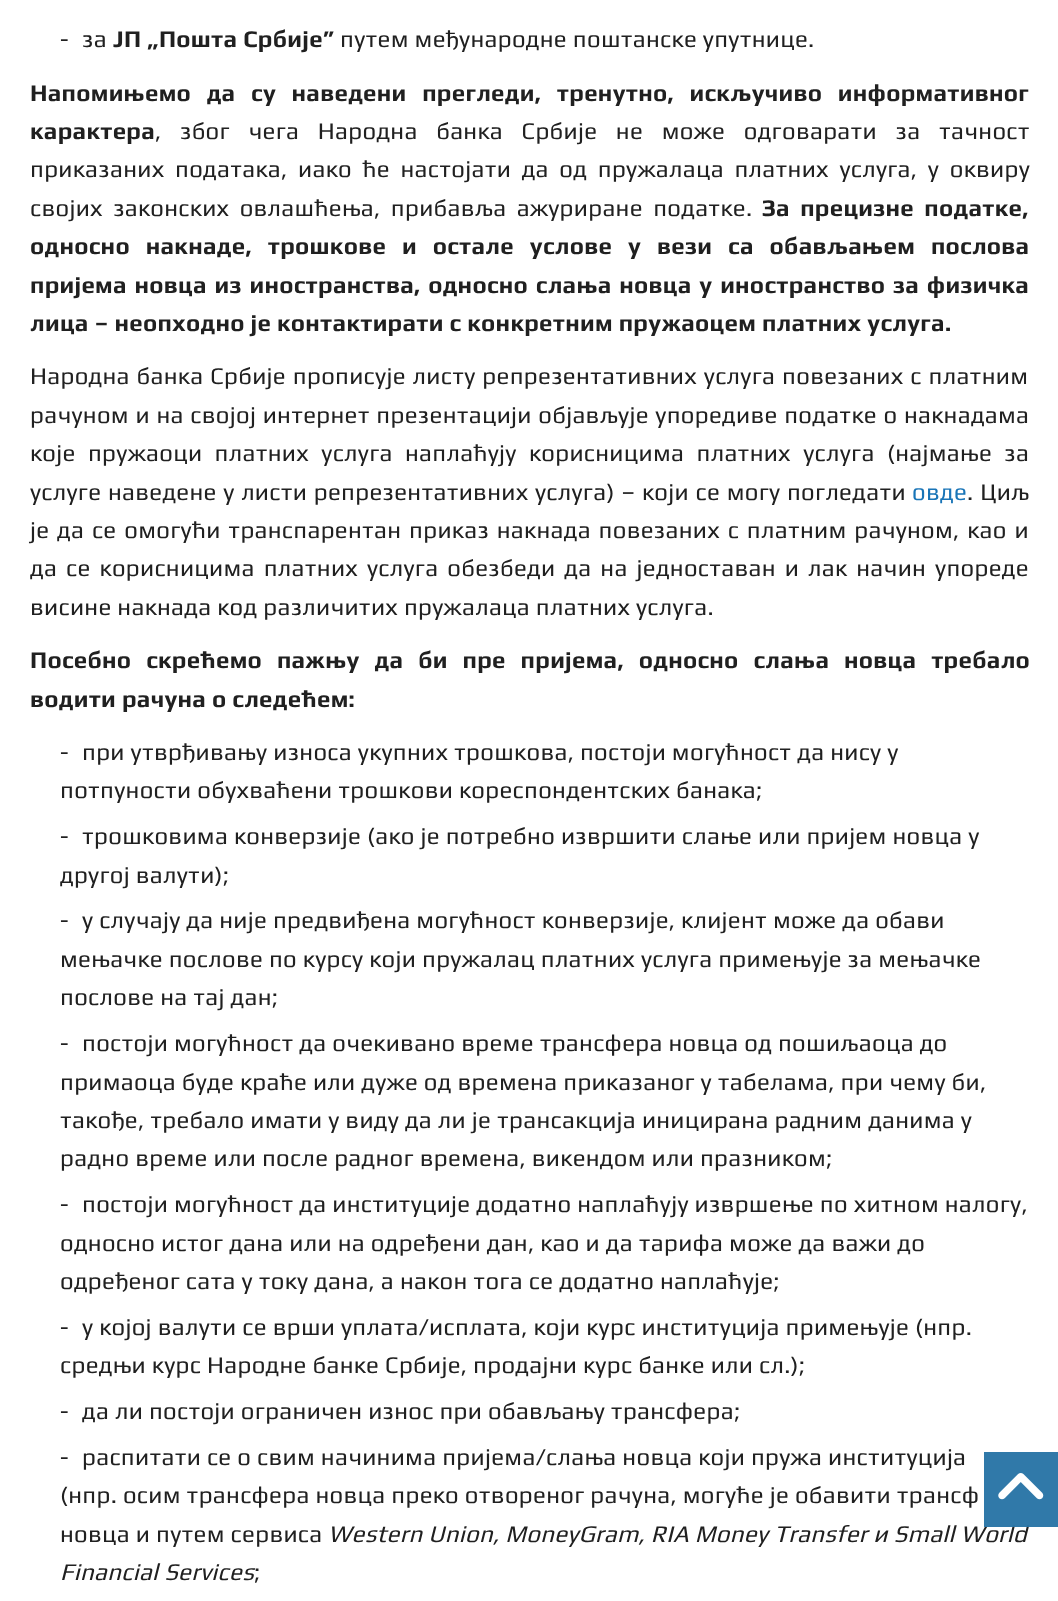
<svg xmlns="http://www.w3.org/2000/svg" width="1058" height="1601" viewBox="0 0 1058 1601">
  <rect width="100%" height="100%" fill="#fff"/>
  <g font-family="Play" font-size="24" letter-spacing="0.3" fill="#202020">
    <text x="60" y="47">-</text>
    <text x="82" y="47">за</text>
  </g>
  <text x="113" y="47" font-family="Play" font-size="24" font-weight="bold" letter-spacing="0.3" fill="#202020">ЈП „Пошта Србије”</text>
  <text x="340" y="47" font-family="Play" font-size="24" letter-spacing="0.3" fill="#202020">путем међународне поштанске упутнице.</text>
  <g font-family="Play" font-size="24" font-weight="bold" letter-spacing="0.3" fill="#202020">
    <text x="30" y="101" word-spacing="9.75">Напомињемо да су наведени прегледи, тренутно, искључиво информативног</text>
    <text x="30" y="139">карактера</text>
  </g>
  <g font-family="Play" font-size="24" letter-spacing="0.3" fill="#202020">
    <text x="155" y="139" word-spacing="12.75">, због чега Народна банка Србије не може одговарати за тачност</text>
    <text x="30" y="177" word-spacing="4.75">приказаних података, иако ће настојати да од пружалаца платних услуга, у оквиру</text>
    <text x="30" y="216" word-spacing="4.5">својих законских овлашћења, прибавља ажуриране податке.</text>
  </g>
  <g font-family="Play" font-size="24" font-weight="bold" letter-spacing="0.3" fill="#202020">
    <text x="762" y="216" word-spacing="4.5">За прецизне податке,</text>
    <text x="30" y="254" word-spacing="10">односно накнаде, трошкове и остале услове у вези са обављањем послова</text>
    <text x="30" y="293" word-spacing="1.9">пријема новца из иностранства, односно слања новца у иностранство за физичка</text>
    <text x="30" y="331">лица – неопходно је контактирати с конкретним пружаоцем платних услуга.</text>
  </g>
  <g font-family="Play" font-size="24" letter-spacing="0.3" fill="#202020">
    <text x="30" y="384" word-spacing="1">Народна банка Србије прописује листу репрезентативних услуга повезаних с платним</text>
    <text x="30" y="423" word-spacing="0.75">рачуном и на својој интернет презентацији објављује упоредиве податке о накнадама</text>
    <text x="30" y="461" word-spacing="6.5">које пружаоци платних услуга наплаћују корисницима платних услуга (најмање за</text>
    <text x="30" y="500" word-spacing="0.75">услуге наведене у листи репрезентативних услуга) – који се могу погледати</text>
  </g>
  <text x="912" y="500" font-family="Play" font-size="24" letter-spacing="0.3" fill="#1874b7">овде</text>
  <g font-family="Play" font-size="24" letter-spacing="0.3" fill="#202020">
    <text x="967" y="500" word-spacing="1">. Циљ</text>
    <text x="30" y="538" word-spacing="1.9">је да се омогући транспарентан приказ накнада повезаних с платним рачуном, као и</text>
    <text x="30" y="576" word-spacing="3.1">да се корисницима платних услуга обезбеди да на једноставан и лак начин упореде</text>
    <text x="30" y="615">висине накнада код различитих пружалаца платних услуга.</text>
  </g>
  <g font-family="Play" font-size="24" font-weight="bold" letter-spacing="0.3" fill="#202020">
    <text x="30" y="668" word-spacing="9">Посебно скрећемо пажњу да би пре пријема, односно слања новца требало</text>
    <text x="30" y="707">водити рачуна о следећем:</text>
  </g>
  <g font-family="Play" font-size="24" letter-spacing="0.3" fill="#202020">
    <text x="60" y="760">-</text>
    <text x="82" y="760">при утврђивању износа укупних трошкова, постоји могућност да нису у</text>
    <text x="60" y="798">потпуности обухваћени трошкови кореспондентских банака;</text>
    <text x="60" y="844">-</text>
    <text x="82" y="844">трошковима конверзије (ако је потребно извршити слање или пријем новца у</text>
    <text x="60" y="883">другој валути);</text>
    <text x="60" y="928">-</text>
    <text x="82" y="928">у случају да није предвиђена могућност конверзије, клијент може да обави</text>
    <text x="60" y="967">мењачке послове по курсу који пружалац платних услуга примењује за мењачке</text>
    <text x="60" y="1005">послове на тај дан;</text>
    <text x="60" y="1051">-</text>
    <text x="82" y="1051">постоји могућност да очекивано време трансфера новца од пошиљаоца до</text>
    <text x="60" y="1090">примаоца буде краће или дуже од времена приказаног у табелама, при чему би,</text>
    <text x="60" y="1128">такође, требало имати у виду да ли је трансакција иницирана радним данима у</text>
    <text x="60" y="1166">радно време или после радног времена, викендом или празником;</text>
    <text x="60" y="1212">-</text>
    <text x="82" y="1212">постоји могућност да институције додатно наплаћују извршење по хитном налогу,</text>
    <text x="60" y="1251">односно истог дана или на одређени дан, као и да тарифа може да важи до</text>
    <text x="60" y="1289">одређеног сата у току дана, а након тога се додатно наплаћује;</text>
    <text x="60" y="1335">-</text>
    <text x="82" y="1335">у којој валути се врши уплата/исплата, који курс институција примењује (нпр.</text>
    <text x="60" y="1373">средњи курс Народне банке Србије, продајни курс банке или сл.);</text>
    <text x="60" y="1419">-</text>
    <text x="82" y="1419">да ли постоји ограничен износ при обављању трансфера;</text>
    <text x="60" y="1465">-</text>
    <text x="82" y="1465">распитати се о свим начинима пријема/слања новца који пружа институција</text>
    <text x="60" y="1503">(нпр. осим трансфера новца преко отвореног рачуна, могуће је обавити трансф</text>
    <text x="60" y="1542">новца и путем сервиса</text>
  </g>
  <g font-family="Play" font-size="24" font-style="italic" letter-spacing="0.3" fill="#202020">
    <text x="328" y="1542">Western Union, МoneyGram, RIA Money Transfer и Small World</text>
    <text x="60" y="1580">Financial Services</text>
  </g>
  <text x="254" y="1580" font-family="Play" font-size="24" letter-spacing="0.3" fill="#202020">;</text>
  <path d="M984 1452h74v75H984z" fill="#2874a6f5"/>
  <image x="998" y="1473" width="46" height="27" href="img/1.png"/>
</svg>
